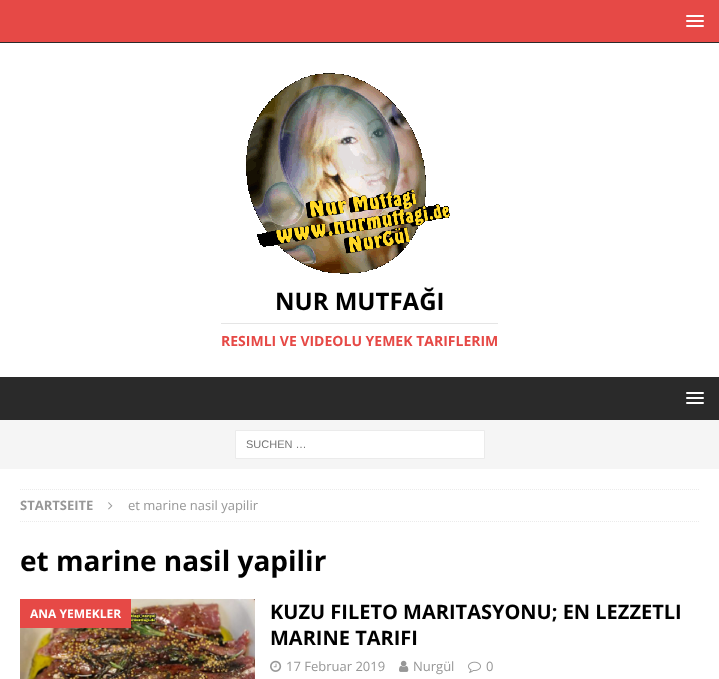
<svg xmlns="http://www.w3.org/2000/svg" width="719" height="679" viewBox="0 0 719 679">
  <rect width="100%" height="100%" fill="#e64946"/>
  <path d="M0 42h719v1H0z" fill="#2a2a2a"/>
  <rect x="686" y="15" width="18" height="2" rx="1" fill="#fff"/>
  <rect x="686" y="20" width="18" height="2" rx="1" fill="#fff"/>
  <rect x="686" y="25" width="18" height="2" rx="1" fill="#fff"/>
  <path d="M0 43h719v334H0z" fill="#fff"/>
  <image x="246" y="73" width="204" height="201" href="img/1.png"/>
  <path d="M221 323h277v1H221z" fill="#e5e5e5"/>
  <path d="M0 377h719v43H0z" fill="#2a2a2a"/>
  <rect x="686" y="392" width="18" height="2" rx="1" fill="#fff"/>
  <rect x="686" y="397" width="18" height="2" rx="1" fill="#fff"/>
  <rect x="686" y="402" width="18" height="2" rx="1" fill="#fff"/>
  <path d="M0 420h719v49H0z" fill="#f5f5f5"/>
  <path d="M235.5 430.5h249v28H235.5z" fill="#fff" stroke="#ebebeb"/>
  <path d="M0 469h719v210H0z" fill="#fff"/>
  <path d="M20 489.5H699" fill="none" stroke="#ebebeb" stroke-dasharray="1 1"/>
  <path d="M20 521.5H699" fill="none" stroke="#ebebeb" stroke-dasharray="1 1"/>
  <image x="108" y="502" width="5" height="8" href="img/2.png"/>
  <image x="20" y="599" width="235" height="80" href="img/3.png"/>
  <path d="M20 599h111v29H20z" fill="#e64946"/>
  <image x="270" y="660" width="12" height="12" href="img/4.png"/>
  <image x="399" y="660" width="10" height="12" href="img/5.png"/>
  <image x="468" y="661" width="13" height="12" href="img/6.png"/>
  <text x="275" y="310" font-family="Open Sans" font-size="24" font-weight="bold" fill="#000">NUR MUTFAĞI</text>
  <text x="221" y="346" font-family="Open Sans" font-size="14" font-weight="bold" fill="#e64946">RESIMLI VE VIDEOLU YEMEK TARIFLERIM</text>
  <text x="246" y="448" font-family="Liberation Sans" font-size="11" fill="#757575">SUCHEN …</text>
  <text x="20" y="510" font-family="Open Sans" font-size="13" font-weight="bold" fill="#979797">STARTSEITE</text>
  <text x="128" y="510" font-family="Open Sans" font-size="13" fill="#979797">et marine nasil yapilir</text>
  <text x="20" y="571" font-family="Open Sans" font-size="28" font-weight="bold" fill="#000">et marine nasil yapilir</text>
  <text x="30" y="618" font-family="Open Sans" font-size="12" font-weight="bold" fill="#fff">ANA YEMEKLER</text>
  <g font-family="Open Sans" font-size="20" font-weight="bold" fill="#000">
    <text x="270" y="619">KUZU FILETO MARITASYONU; EN LEZZETLI</text>
    <text x="270" y="645">MARINE TARIFI</text>
  </g>
  <g font-family="Open Sans" font-size="13" fill="#979797">
    <text x="286" y="671">17 Februar 2019</text>
    <text x="413" y="671">Nurgül</text>
    <text x="486" y="671">0</text>
  </g>
</svg>
